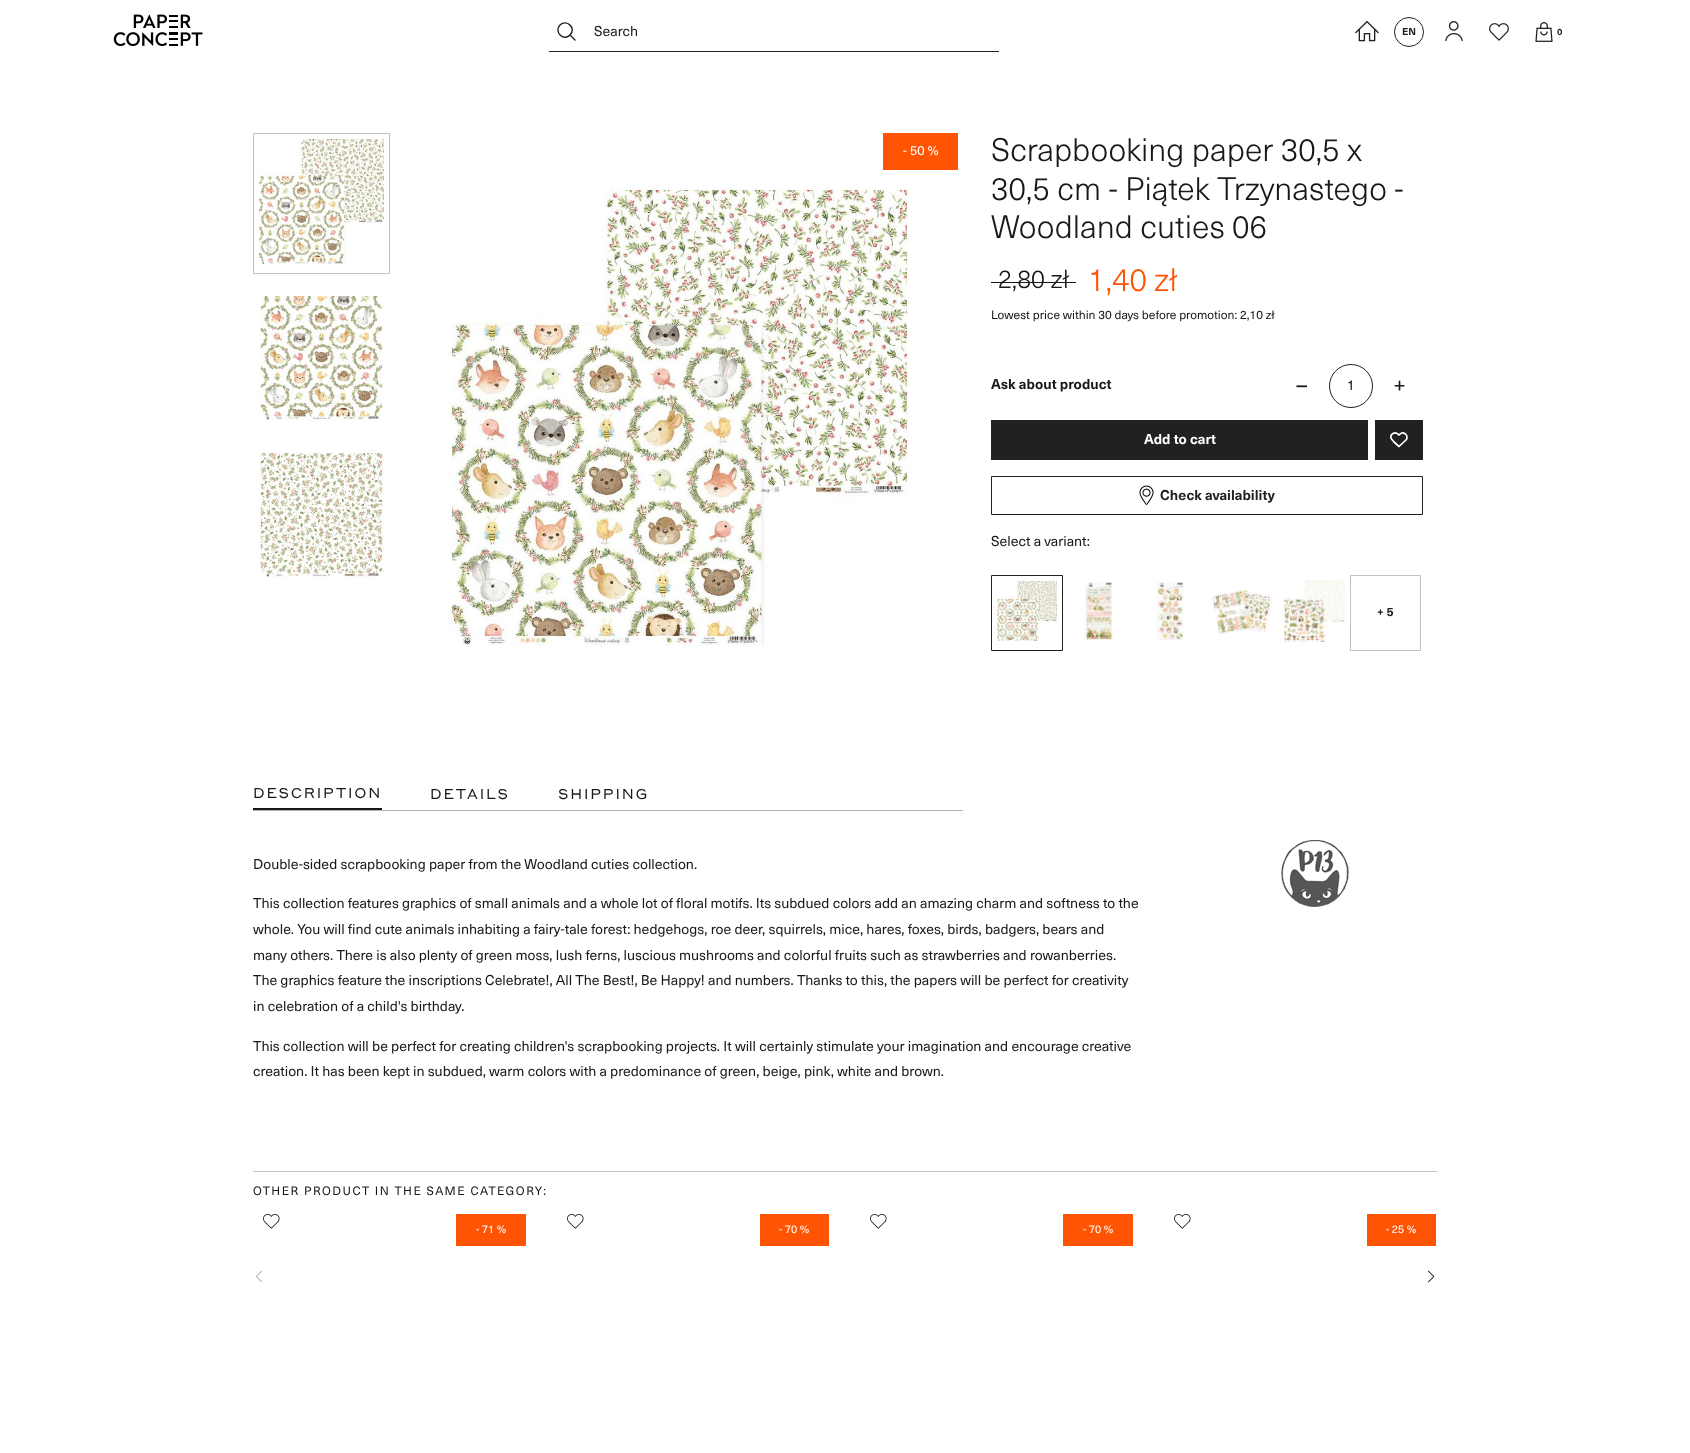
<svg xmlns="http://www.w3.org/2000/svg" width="1690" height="1453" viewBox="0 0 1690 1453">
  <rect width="100%" height="100%" fill="#fff"/>
  <image x="113" y="14" width="90" height="33" href="img/1.png"/>
  <path d="M549 51h450v1H549z" fill="#222021"/>
  <path d="M575 40L570 35M570 35C577 28.5 566.5 18.5 560 25C553.5 31.5 563.5 42 570 35Z" fill="none" stroke="#222021" stroke-width="1.4" stroke-linecap="round" stroke-linejoin="round"/>
  <image x="1355" y="20" width="24" height="22" href="img/2.png"/>
  <circle cx="1409" cy="32" r="14.5" fill="none" stroke="#222021"/>
  <image x="1445" y="21" width="18" height="20" href="img/3.png"/>
  <image x="1489" y="23" width="20" height="18" href="img/4.png"/>
  <image x="1535" y="22" width="18" height="20" href="img/5.png"/>
  <path d="M253.5 133.5h136v140H253.5z" fill="none" stroke="#c1c0c0"/>
  <image x="259" y="139" width="125" height="125" href="img/6.png"/>
  <image x="259" y="296" width="125" height="125" href="img/7.png"/>
  <image x="259" y="453" width="125" height="125" href="img/8.png"/>
  <path d="M883 133h75v37H883z" fill="#ff5403"/>
  <image x="450" y="188" width="459" height="459" href="img/9.png"/>
  <path d="M991 282h85v1H991z" fill="#181818"/>
  <circle cx="1351" cy="386" r="21.5" fill="none" stroke="#222021"/>
  <path d="M991 420h377v40H991z" fill="#222021"/>
  <path d="M1375 420h48v40H1375z" fill="#222021"/>
  <path d="M1399 446.5L1394 442L1391.5 439C1389 434 1395.5 430.5 1399 435C1403 430 1409.5 435.5 1406 440Z" fill="none" stroke="#fff" stroke-width="1.7" stroke-linecap="round" stroke-linejoin="round"/>
  <path d="M991.5 476.5h431v38H991.5z" fill="none" stroke="#222021"/>
  <image x="1139" y="485" width="15" height="21" href="img/10.png"/>
  <path d="M991.5 575.5h71v75H991.5z" fill="none" stroke="#222021"/>
  <image x="997" y="581" width="60" height="60" href="img/11.png"/>
  <image x="1084" y="582" width="29" height="58" href="img/12.png"/>
  <image x="1156" y="582" width="28" height="59" href="img/13.png"/>
  <image x="1212" y="589" width="61" height="46" href="img/14.png"/>
  <image x="1283" y="580" width="62" height="62" href="img/15.png"/>
  <path d="M1350.5 575.5h70v75H1350.5z" fill="none" stroke="#c1c0c0"/>
  <path d="M253 810h710v1H253z" fill="#b2b2b2"/>
  <path d="M253 808h129v2H253z" fill="#181818"/>
  <image x="1281" y="840" width="68" height="67" href="img/16.png"/>
  <path d="M253 1171h1184v1H253z" fill="#c1c0c0"/>
  <image x="263" y="1214" width="17" height="15" href="img/17.png"/>
  <path d="M456 1214h70v32H456z" fill="#ff5403"/>
  <image x="567" y="1214" width="17" height="15" href="img/17.png"/>
  <path d="M760 1214h69v32H760z" fill="#ff5403"/>
  <image x="870" y="1214" width="17" height="15" href="img/17.png"/>
  <path d="M1063 1214h70v32H1063z" fill="#ff5403"/>
  <image x="1174" y="1214" width="17" height="15" href="img/17.png"/>
  <path d="M1367 1214h69v32H1367z" fill="#ff5403"/>
  <image x="256" y="1270" width="6" height="13" href="img/18.png"/>
  <image x="1428" y="1270" width="7" height="13" href="img/19.png"/>
  <text x="594" y="36" font-family="'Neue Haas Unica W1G'" font-size="14" fill="#222021">Search</text>
  <text x="1402" y="35" font-family="'Neue Haas Unica W1G'" font-size="10" font-weight="bold" fill="#222021">EN</text>
  <text x="1557" y="35" font-family="'Neue Haas Unica W1G'" font-size="9" font-weight="bold" fill="#222021">0</text>
  <text x="903" y="155" font-family="'Neue Haas Unica W1G'" font-size="13" fill="#fff">- 50 %</text>
  <g font-family="'Neue Haas Unica W1G'" font-size="32" font-weight="300" fill="#181818">
    <text x="991" y="161">Scrapbooking paper 30,5 x</text>
    <text x="991" y="200">30,5 cm - Piątek Trzynastego -</text>
    <text x="991" y="238">Woodland cuties 06</text>
  </g>
  <text x="998" y="288" font-family="'Neue Haas Unica W1G'" font-size="25.5" font-weight="300" fill="#181818">2,80 zł</text>
  <text x="1088" y="291" font-family="'Neue Haas Unica W1G'" font-size="32" font-weight="300" fill="#ff5403">1,40 zł</text>
  <text x="991" y="319" font-family="'Neue Haas Unica W1G'" font-size="12" fill="#181818">Lowest price within 30 days before promotion: 2,10 zł</text>
  <text x="991" y="389" font-family="'Neue Haas Unica W1G'" font-size="14" font-weight="bold" fill="#181818">Ask about product</text>
  <text x="1296" y="393" font-family="'Neue Haas Unica W1G'" font-size="23" fill="#181818">–</text>
  <text x="1347" y="390" font-family="'Neue Haas Unica W1G'" font-size="14" fill="#181818">1</text>
  <text x="1393" y="393" font-family="'Neue Haas Unica W1G'" font-size="23" fill="#181818">+</text>
  <text x="1144" y="444" font-family="'Neue Haas Unica W1G'" font-size="14" font-weight="bold" fill="#fff">Add to cart</text>
  <text x="1160" y="500" font-family="'Neue Haas Unica W1G'" font-size="14" font-weight="bold" fill="#222021">Check availability</text>
  <text x="991" y="546" font-family="'Neue Haas Unica W1G'" font-size="14" fill="#181818">Select a variant:</text>
  <text x="1377" y="616" font-family="'Neue Haas Unica W1G'" font-size="12" font-weight="bold" fill="#222021">+ 5</text>
  <g font-family="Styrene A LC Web" font-size="14" letter-spacing="1.75" fill="#181818">
    <text x="253" y="798">DESCRIPTION</text>
    <text x="430" y="799">DETAILS</text>
    <text x="558" y="799">SHIPPING</text>
  </g>
  <g font-family="'Neue Haas Unica W1G'" font-size="14" fill="#181818">
    <text x="253" y="869">Double-sided scrapbooking paper from the Woodland cuties collection.</text>
    <text x="253" y="908">This collection features graphics of small animals and a whole lot of floral motifs. Its subdued colors add an amazing charm and softness to the</text>
    <text x="253" y="934">whole. You will find cute animals inhabiting a fairy-tale forest: hedgehogs, roe deer, squirrels, mice, hares, foxes, birds, badgers, bears and</text>
    <text x="253" y="960">many others. There is also plenty of green moss, lush ferns, luscious mushrooms and colorful fruits such as strawberries and rowanberries.</text>
    <text x="253" y="985">The graphics feature the inscriptions Celebrate!, All The Best!, Be Happy! and numbers. Thanks to this, the papers will be perfect for creativity</text>
    <text x="253" y="1011">in celebration of a child's birthday.</text>
    <text x="253" y="1051">This collection will be perfect for creating children's scrapbooking projects. It will certainly stimulate your imagination and encourage creative</text>
    <text x="253" y="1076">creation. It has been kept in subdued, warm colors with a predominance of green, beige, pink, white and brown.</text>
  </g>
  <text x="253" y="1195" font-family="'Neue Haas Unica W1G'" font-size="12" letter-spacing="1.5" fill="#181818">OTHER PRODUCT IN THE SAME CATEGORY:</text>
  <g font-family="'Neue Haas Unica W1G'" font-size="11" fill="#fff">
    <text x="476" y="1233">- 71 %</text>
    <text x="779" y="1233">- 70 %</text>
    <text x="1083" y="1233">- 70 %</text>
    <text x="1386" y="1233">- 25 %</text>
  </g>
</svg>
